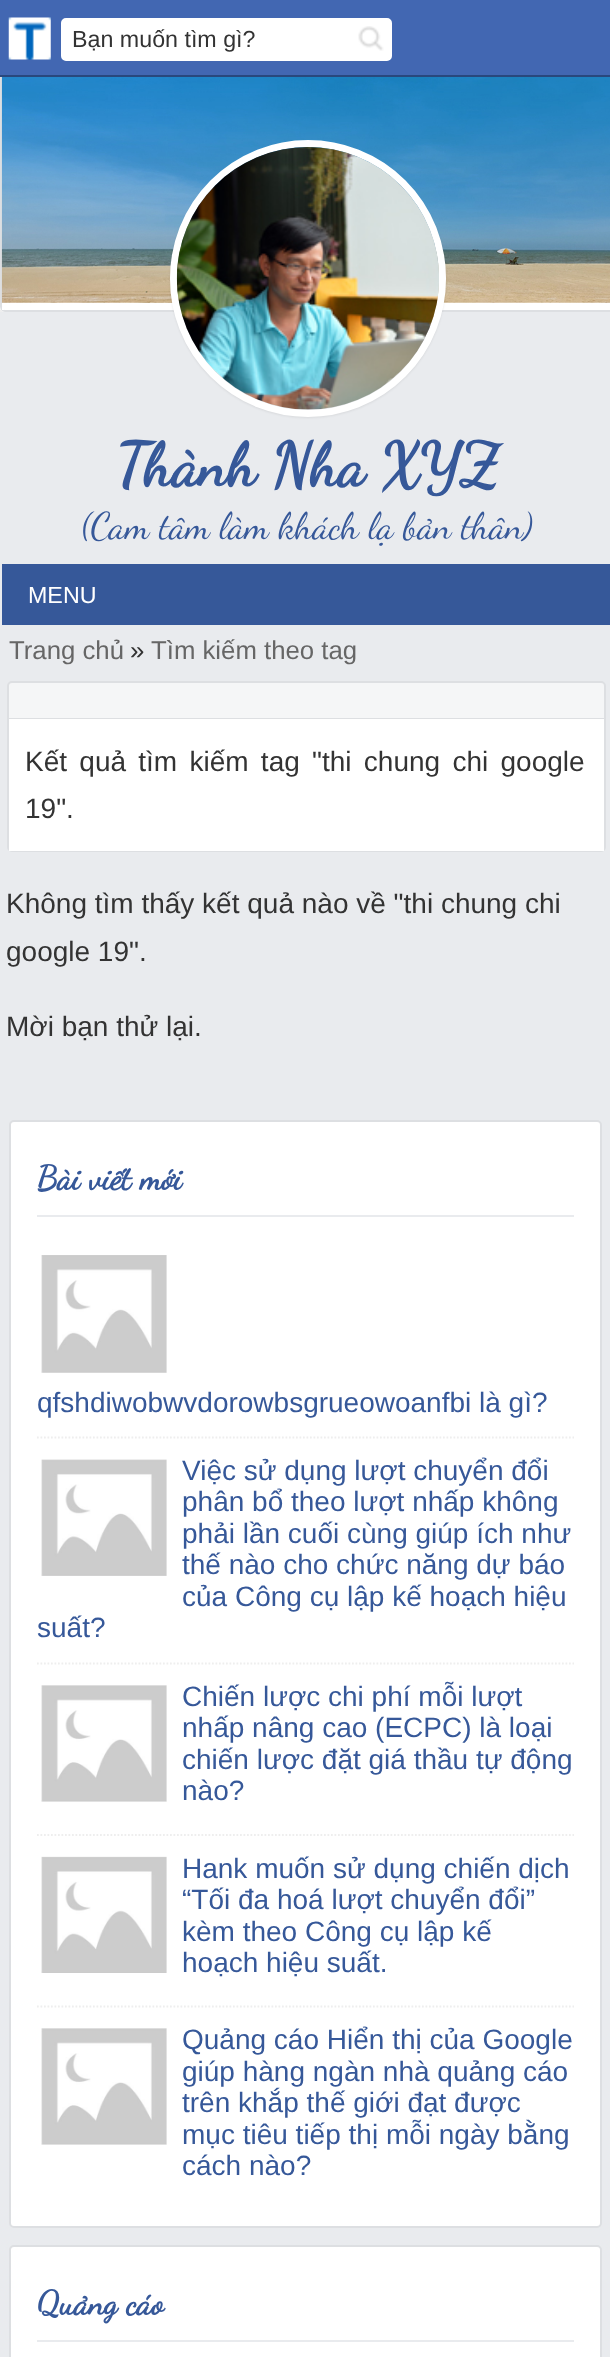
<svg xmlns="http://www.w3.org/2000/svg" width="610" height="2357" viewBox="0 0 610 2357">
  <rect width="100%" height="100%" fill="#e9ebee"/>
  <path d="M0 0h610v75H0z" fill="#4267b2"/>
  <path d="M0 307h610v5H0z" fill="#eee"/>
  <path d="M0 75H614V307C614 310 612 312 609 312H5C2 312 0 310 0 307Z" fill="#fff"/>
  <path d="M0 75H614V306C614 309 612 312 609 312H5C2 312 0 309 0 306ZM2 75H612V306C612 308 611 310 609 310H5C3 310 2 308 2 306Z" fill="#dddfe2" fill-rule="evenodd"/>
  <path d="M0 75h610v2H0z" fill="#29487d"/>
  <image x="8" y="17" width="43" height="43" href="img/1.png"/>
  <rect x="62" y="19" width="329" height="41" rx="4" fill="#fff" stroke="#fff" stroke-width="2"/>
  <image x="358" y="26" width="26" height="25" href="img/2.png"/>
  <path d="M2 307h2v3H2z" fill="#fff"/>
  <image x="1" y="77" width="609" height="226" href="img/3.png"/>
  <rect x="170" y="142" width="276" height="276" rx="138" fill="#00000012" filter="blur(1px)"/>
  <rect x="173.5" y="143.5" width="269" height="270" rx="134.5" fill="none" stroke="#fff" stroke-width="7"/>
  <image x="176" y="147" width="263" height="263" href="img/4.png"/>
  <path d="M2 564h608v61H2z" fill="#365899"/>
  <rect x="8" y="682" width="597" height="169" rx="4" fill="#f5f6f7" stroke="#dddfe2" stroke-width="2"/>
  <path d="M9 718h595v1H9z" fill="#dddfe2"/>
  <path d="M9 719h595v132H9z" fill="#fff"/>
  <rect x="10" y="1121" width="591" height="1106" rx="4" fill="#fff" stroke="#dddfe2" stroke-width="2"/>
  <path d="M37 1215h537v2H37z" fill="#e9ebee"/>
  <path d="M37 1437.5H574" fill="none" stroke="#eee" stroke-width="1.8" stroke-dasharray="1.75 1.75"/>
  <image x="41" y="1255" width="126" height="118" href="img/5.png"/>
  <path d="M37 1663.5H574" fill="none" stroke="#eee" stroke-width="1.8" stroke-dasharray="1.75 1.75"/>
  <image x="41" y="1459" width="126" height="117" href="img/6.png"/>
  <path d="M37 1835H574" fill="none" stroke="#eee" stroke-width="1.8" stroke-dasharray="1.75 1.75"/>
  <image x="41" y="1685" width="126" height="117" href="img/7.png"/>
  <path d="M37 2006.5H574" fill="none" stroke="#eee" stroke-width="1.8" stroke-dasharray="1.75 1.75"/>
  <image x="41" y="1856" width="126" height="117" href="img/8.png"/>
  <image x="41" y="2028" width="126" height="117" href="img/7.png"/>
  <rect x="10" y="2246" width="591" height="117" rx="4" fill="#fff" stroke="#dddfe2" stroke-width="2"/>
  <path d="M37 2340h537v2H37z" fill="#e9ebee"/>
  <text x="72" y="47" font-family="Liberation Sans" font-size="23.25" fill="#333">Bạn muốn tìm gì?</text>
  <text x="116" y="485" font-family="Dancing Script" font-size="60.75" font-weight="bold" fill="#365899">Thành Nha XYZ</text>
  <text x="81" y="538" font-family="Dancing Script" font-size="37.25" fill="#365899">(Cam tâm làm khách lạ bản thân)</text>
  <text x="28" y="603" font-family="Liberation Sans" font-size="23.25" fill="#fff">MENU</text>
  <text x="9" y="659" font-family="Liberation Sans" font-size="25.75" fill="#666">Trang chủ</text>
  <text x="130" y="659" font-family="Liberation Sans" font-size="25.75" fill="#333">»</text>
  <text x="151" y="659" font-family="Liberation Sans" font-size="25.75" fill="#666">Tìm kiếm theo tag</text>
  <g font-family="Liberation Sans" font-size="28" fill="#333">
    <text x="25" y="771" word-spacing="4.5">Kết quả tìm kiếm tag "thi chung chi google</text>
    <text x="25" y="818">19".</text>
    <text x="6" y="913">Không tìm thấy kết quả nào về "thi chung chi</text>
    <text x="6" y="961">google 19".</text>
    <text x="6" y="1036">Mời bạn thử lại.</text>
  </g>
  <text x="37" y="1189" font-family="Dancing Script" font-size="33.5" font-weight="bold" fill="#365899">Bài viết mới</text>
  <g font-family="Liberation Sans" font-size="28" fill="#365899">
    <text x="37" y="1412">qfshdiwobwvdorowbsgrueowoanfbi là gì?</text>
    <text x="182" y="1480">Việc sử dụng lượt chuyển đổi</text>
    <text x="182" y="1511">phân bổ theo lượt nhấp không</text>
    <text x="182" y="1543">phải lần cuối cùng giúp ích như</text>
    <text x="182" y="1574">thế nào cho chức năng dự báo</text>
    <text x="182" y="1606">của Công cụ lập kế hoạch hiệu</text>
    <text x="37" y="1637">suất?</text>
    <text x="182" y="1706">Chiến lược chi phí mỗi lượt</text>
    <text x="182" y="1737">nhấp nâng cao (ECPC) là loại</text>
    <text x="182" y="1769">chiến lược đặt giá thầu tự động</text>
    <text x="182" y="1800">nào?</text>
    <text x="182" y="1878">Hank muốn sử dụng chiến dịch</text>
    <text x="182" y="1909">“Tối đa hoá lượt chuyển đổi”</text>
    <text x="182" y="1941">kèm theo Công cụ lập kế</text>
    <text x="182" y="1972">hoạch hiệu suất.</text>
    <text x="182" y="2049">Quảng cáo Hiển thị của Google</text>
    <text x="182" y="2081">giúp hàng ngàn nhà quảng cáo</text>
    <text x="182" y="2112">trên khắp thế giới đạt được</text>
    <text x="182" y="2144">mục tiêu tiếp thị mỗi ngày bằng</text>
    <text x="182" y="2175">cách nào?</text>
  </g>
  <text x="37" y="2314" font-family="Dancing Script" font-size="33.5" font-weight="bold" fill="#365899">Quảng cáo</text>
</svg>
